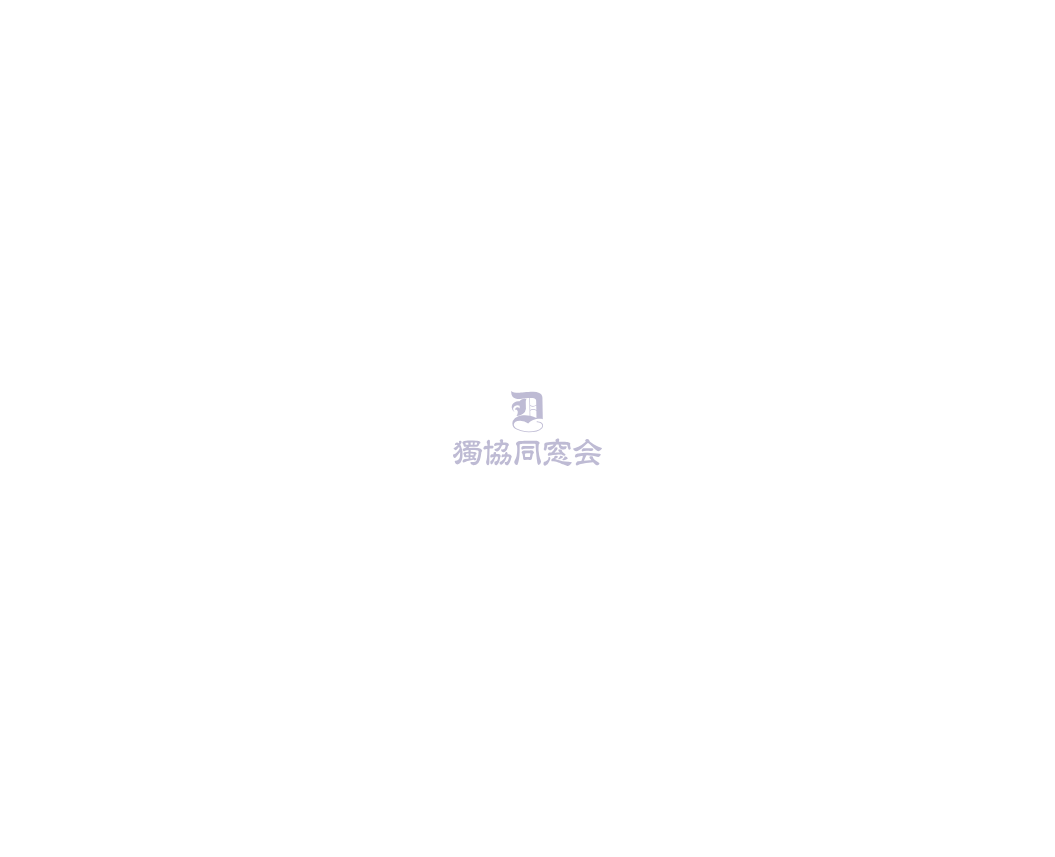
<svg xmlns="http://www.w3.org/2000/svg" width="1055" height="857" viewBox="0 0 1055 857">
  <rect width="100%" height="100%" fill="#fff"/>
  <image x="453" y="391" width="149" height="75" href="img/1.png"/>
</svg>
